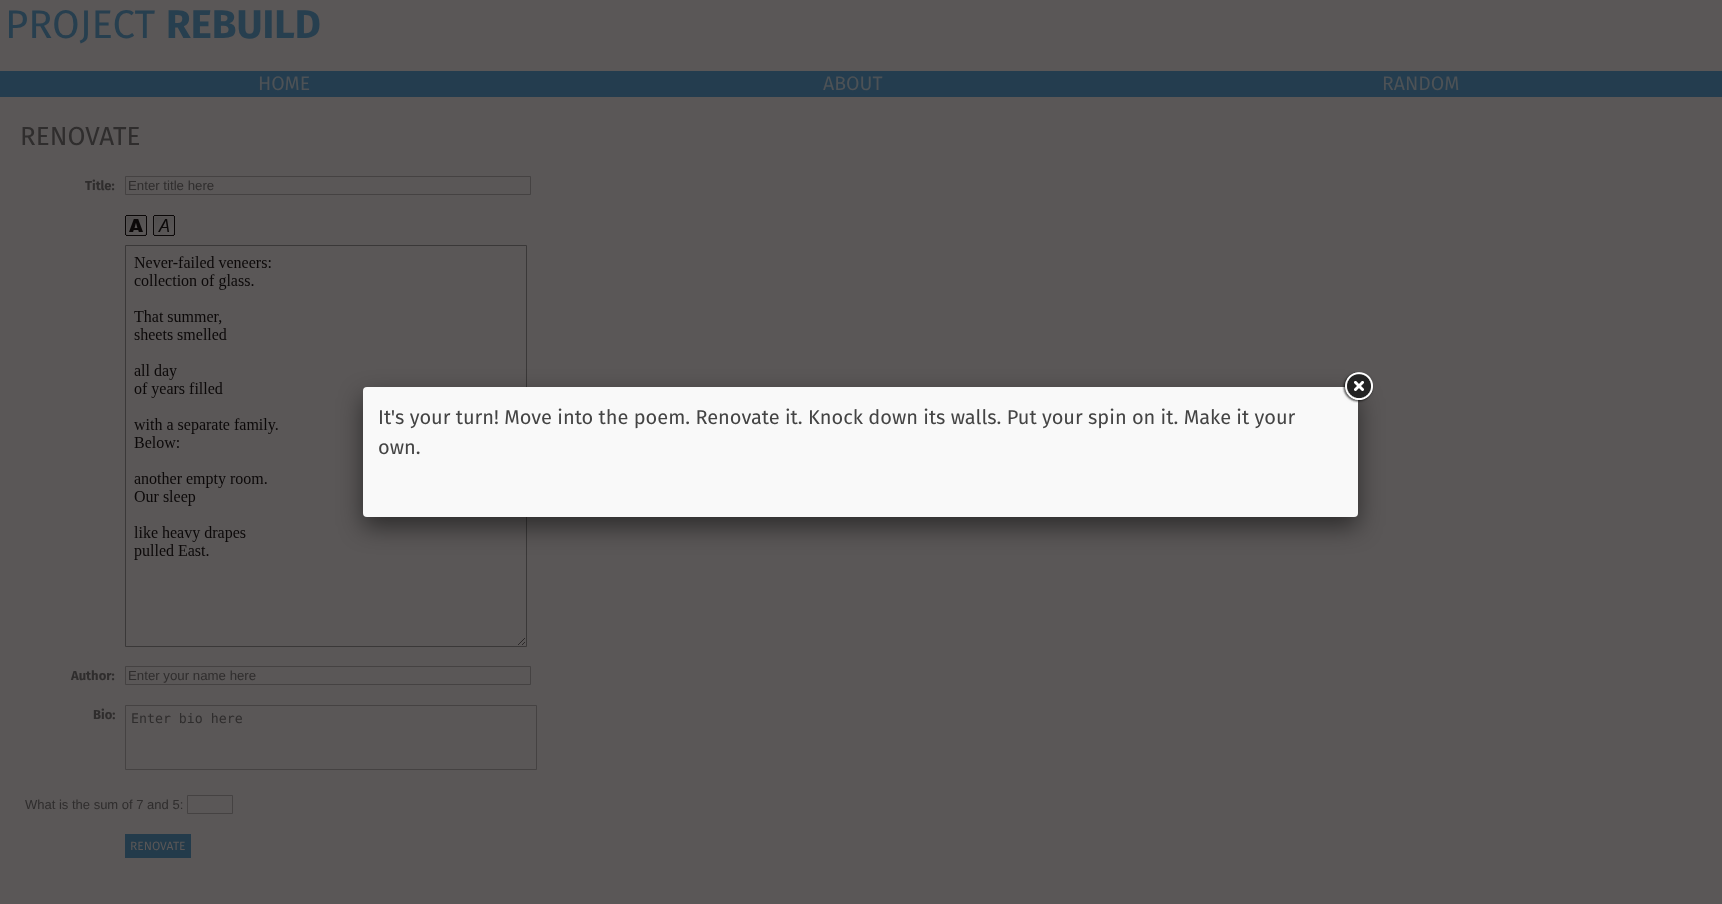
<svg xmlns="http://www.w3.org/2000/svg" width="1722" height="904" viewBox="0 0 1722 904">
  <rect width="100%" height="100%" fill="#5a5757"/>
  <path d="M0 71h1722v26H0z" fill="#243d4f"/>
  <path d="M125.5 176.5h405v18H125.5z" fill="none" stroke="#454242"/>
  <image x="125" y="215" width="22" height="21" href="img/1.png"/>
  <image x="153" y="215" width="22" height="21" href="img/2.png"/>
  <path d="M125.5 245.5h401v401H125.5z" fill="none" stroke="#3a3838"/>
  <image x="134" y="256" width="391" height="389" href="img/3.png"/>
  <path d="M125.5 666.5h405v18H125.5z" fill="none" stroke="#454242"/>
  <path d="M125.5 705.5h411v64H125.5z" fill="none" stroke="#454242"/>
  <path d="M187.5 795.5h45v18H187.5z" fill="none" stroke="#454242"/>
  <path d="M125 834h66v24H125z" fill="#233b4b"/>
  <rect x="363" y="397" width="995" height="130" rx="4" fill="#00000080" filter="blur(12.5px)"/>
  <rect x="363" y="387" width="995" height="130" rx="4" fill="#f9f9f9"/>
  <image x="1342" y="371" width="32" height="32" href="img/4.png"/>
  <text x="5" y="38" font-family="Fira Sans" font-size="40" fill="#273f4f">PROJECT</text>
  <text x="166" y="38" font-family="Fira Sans" font-size="40" font-weight="bold" fill="#273f4f">REBUILD</text>
  <g font-family="Fira Sans" font-size="19.5" fill="#4d5256">
    <text x="258" y="90">HOME</text>
    <text x="823" y="90">ABOUT</text>
    <text x="1382" y="90">RANDOM</text>
  </g>
  <text x="20" y="145" font-family="Fira Sans" font-size="26" fill="#2f2d2d">RENOVATE</text>
  <text x="85" y="190" font-family="Fira Sans" font-size="13" font-weight="bold" fill="#2f2d2d">Title:</text>
  <text x="128" y="190" font-family="Liberation Sans" font-size="13.25" fill="#2f2d2d">Enter title here</text>
  <text x="71" y="680" font-family="Fira Sans" font-size="13" font-weight="bold" fill="#2f2d2d">Author:</text>
  <text x="128" y="680" font-family="Liberation Sans" font-size="13.25" fill="#2f2d2d">Enter your name here</text>
  <text x="93" y="719" font-family="Fira Sans" font-size="13" font-weight="bold" fill="#2f2d2d">Bio:</text>
  <text x="131" y="723" font-family="DejaVu Sans Mono" font-size="13.25" fill="#2f2d2d">Enter bio here</text>
  <text x="25" y="809" font-family="Liberation Sans" font-size="13" fill="#2f2d2d">What is the sum of 7 and 5:</text>
  <text x="130" y="850" font-family="Fira Sans" font-size="12" fill="#5a5757">RENOVATE</text>
  <g font-family="Fira Sans" font-size="20" fill="#444">
    <text x="378" y="424">It's your turn! Move into the poem. Renovate it. Knock down its walls. Put your spin on it. Make it your</text>
    <text x="378" y="454">own.</text>
  </g>
</svg>
